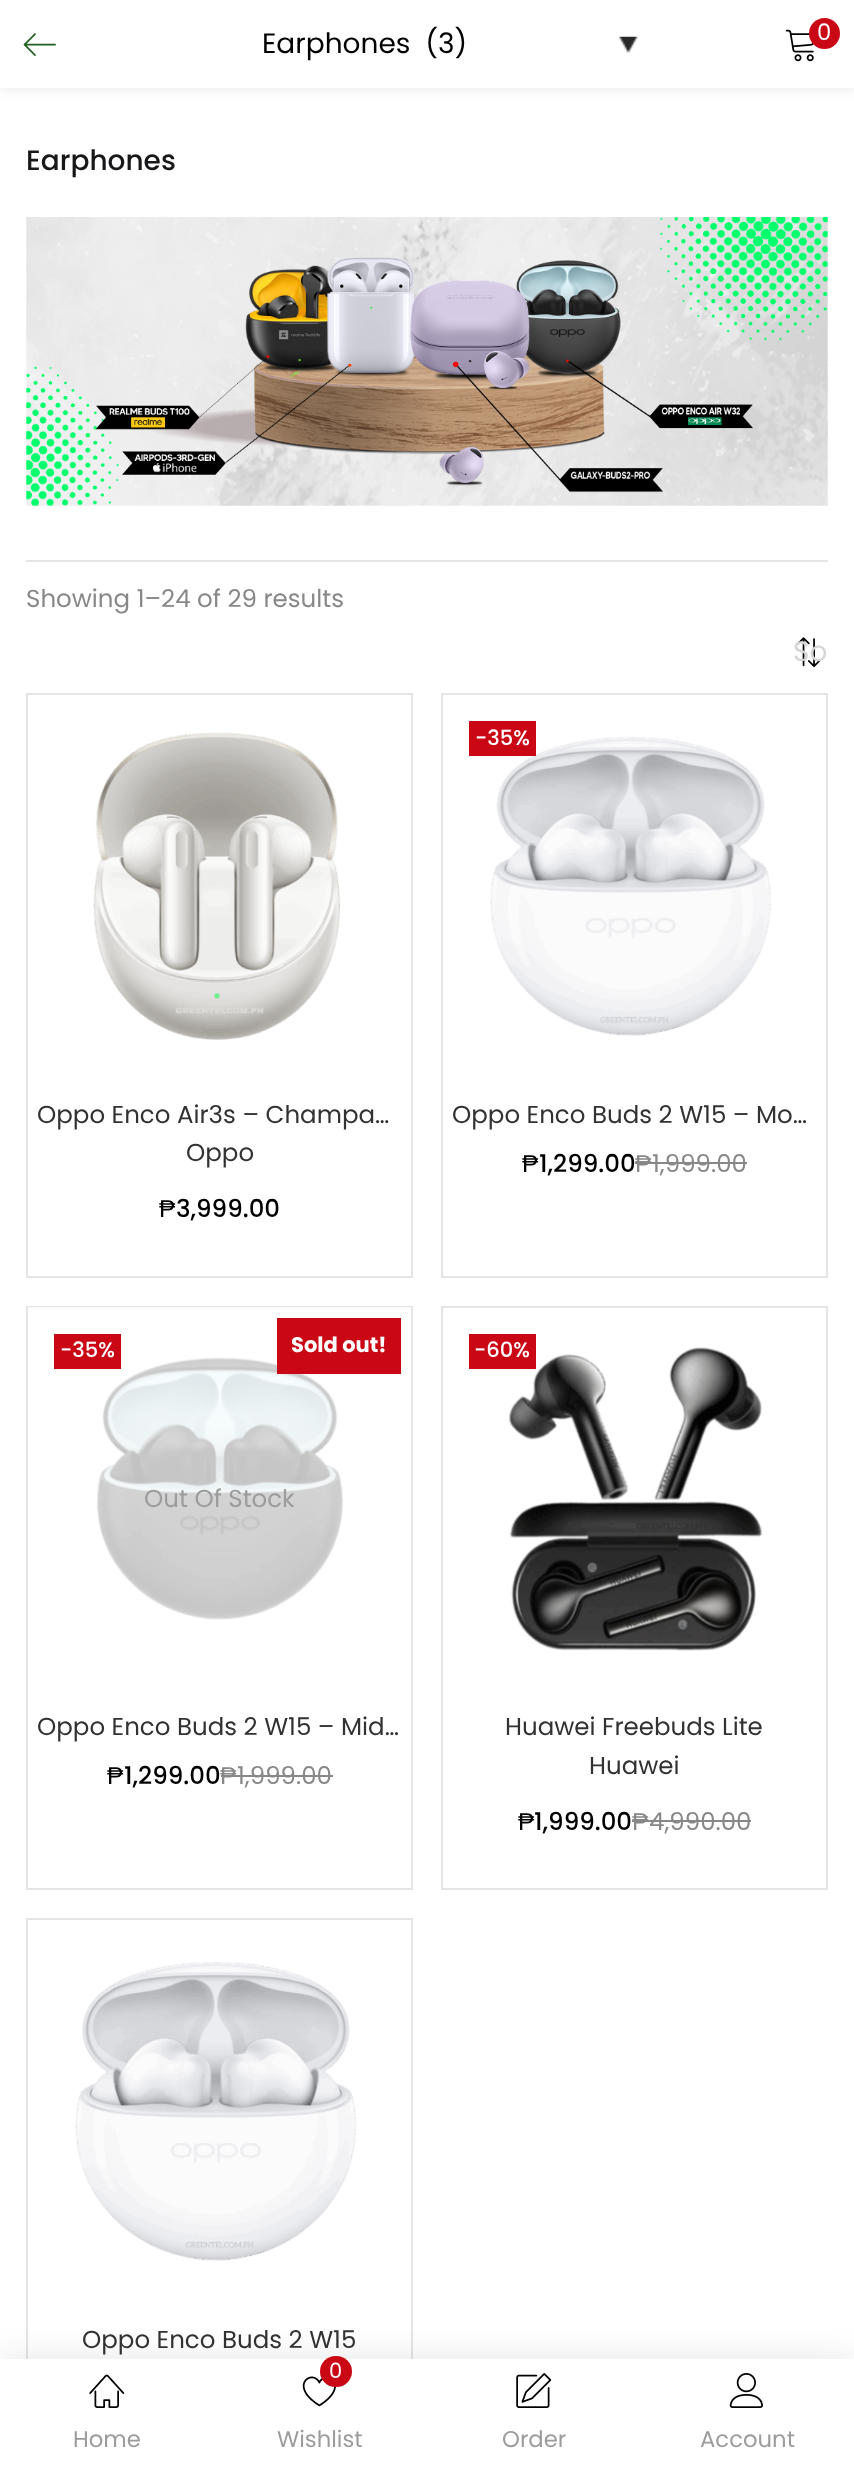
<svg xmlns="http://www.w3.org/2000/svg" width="854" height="2469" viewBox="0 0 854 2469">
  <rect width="100%" height="100%" fill="#fff"/>
  <path d="M0 0h854v88H0z" fill="#0000001a" filter="blur(7px)"/>
  <path d="M0 0h854v88H0z" fill="#fff"/>
  <image x="23" y="33" width="33" height="23" href="img/1.png"/>
  <image x="619" y="36" width="19" height="17" href="img/2.png"/>
  <image x="785" y="29" width="29" height="33" href="img/3.png"/>
  <circle cx="824.5" cy="33.5" r="15.5" fill="#ca0815"/>
  <image x="26" y="217" width="802" height="289" href="img/4.png"/>
  <path d="M26 560h802v2H26z" fill="#e5e5e5"/>
  <image x="797" y="637" width="24" height="30" href="img/5.png"/>
  <path d="M27 694h385v583H27z" fill="none" stroke="#e5e5e5" stroke-width="2"/>
  <image x="93" y="732" width="247" height="308" href="img/6.png"/>
  <path d="M442 694h385v583H442z" fill="none" stroke="#e5e5e5" stroke-width="2"/>
  <image x="490" y="736" width="281" height="300" href="img/7.png"/>
  <path d="M469 721h67v35H469z" fill="#ca0815"/>
  <path d="M635 1162h16v2H635z" fill="#888"/>
  <path d="M651 1162h96v2H651z" fill="#888"/>
  <path d="M27 1307h385v582H27z" fill="none" stroke="#e5e5e5" stroke-width="2"/>
  <image x="96" y="1357" width="248" height="263" href="img/8.png"/>
  <path d="M28 1307h383v313H28z" fill="#ffffffbf"/>
  <path d="M54 1334h67v35H54z" fill="#ca0815"/>
  <path d="M277 1318h124v56H277z" fill="#ca0815"/>
  <path d="M221 1775h15v2H221z" fill="#888"/>
  <path d="M236 1775h97v2H236z" fill="#888"/>
  <path d="M442 1307h385v582H442z" fill="none" stroke="#e5e5e5" stroke-width="2"/>
  <image x="508" y="1347" width="255" height="304" href="img/9.png"/>
  <path d="M469 1334h67v35H469z" fill="#ca0815"/>
  <path d="M632 1820h17v2H632z" fill="#888"/>
  <path d="M649 1820h102v2H649z" fill="#888"/>
  <path d="M27 1919h385v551H27z" fill="none" stroke="#e5e5e5" stroke-width="2"/>
  <image x="75" y="1962" width="282" height="299" href="img/10.png"/>
  <path d="M0 2359h854v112H0z" fill="#0000001a" filter="blur(17.5px)"/>
  <path d="M0 2359h854v110H0z" fill="#fff"/>
  <image x="89" y="2374" width="36" height="34" href="img/11.png"/>
  <image x="302" y="2376" width="34" height="31" href="img/12.png"/>
  <rect x="320" y="2356" width="32" height="31" rx="15.5" fill="#ca0815"/>
  <image x="516" y="2373" width="36" height="35" href="img/13.png"/>
  <image x="729" y="2373" width="34" height="35" href="img/14.png"/>
  <text x="262" y="53" font-family="Poppins" font-size="28" fill="#000" xml:space="preserve">Earphones  (3)</text>
  <text x="817" y="40" font-family="Poppins" font-size="22.75" fill="#fff">0</text>
  <text x="26" y="170" font-family="Poppins" font-size="28" font-weight="500" fill="#17181a">Earphones</text>
  <text x="26" y="607" font-family="Poppins" font-size="24.5" fill="#888">Showing 1–24 of 29 results</text>
  <text x="793" y="661" font-family="Poppins" font-size="28" fill="#d6d6d6">So</text>
  <g font-family="Poppins" font-size="24.5" fill="#323232">
    <text x="37" y="1123">Oppo Enco Air3s – Champa…</text>
    <text x="186" y="1161">Oppo</text>
  </g>
  <text x="159" y="1217" font-family="Liberation Sans" font-size="24.5" fill="#000">₱</text>
  <text x="176" y="1217" font-family="Poppins" font-size="24.5" font-weight="500" fill="#000">3,999.00</text>
  <text x="475" y="745" font-family="Poppins" font-size="21" font-weight="500" fill="#fff">-35%</text>
  <text x="452" y="1123" font-family="Poppins" font-size="24.5" fill="#323232">Oppo Enco Buds 2 W15 – Mo…</text>
  <text x="522" y="1172" font-family="Liberation Sans" font-size="24.5" fill="#000">₱</text>
  <text x="539" y="1172" font-family="Poppins" font-size="24.5" font-weight="500" fill="#000">1,299.00</text>
  <text x="635" y="1172" font-family="Liberation Sans" font-size="24.5" fill="#888">₱</text>
  <text x="652" y="1172" font-family="Poppins" font-size="24.5" fill="#888">1,999.00</text>
  <text x="60" y="1357" font-family="Poppins" font-size="21" font-weight="500" fill="#fff">-35%</text>
  <text x="291" y="1352" font-family="Poppins" font-size="21" font-weight="bold" fill="#fff">Sold out!</text>
  <text x="144" y="1507" font-family="Poppins" font-size="24.5" fill="#9c9c9c">Out Of Stock</text>
  <text x="37" y="1735" font-family="Poppins" font-size="24.5" fill="#323232">Oppo Enco Buds 2 W15 – Mid…</text>
  <text x="107" y="1784" font-family="Liberation Sans" font-size="24.5" fill="#000">₱</text>
  <text x="124" y="1784" font-family="Poppins" font-size="24.5" font-weight="500" fill="#000">1,299.00</text>
  <text x="220" y="1784" font-family="Liberation Sans" font-size="24.5" fill="#888">₱</text>
  <text x="237" y="1784" font-family="Poppins" font-size="24.5" fill="#888">1,999.00</text>
  <text x="474" y="1357" font-family="Poppins" font-size="21" font-weight="500" fill="#fff">-60%</text>
  <g font-family="Poppins" font-size="24.5" fill="#323232">
    <text x="505" y="1735">Huawei Freebuds Lite</text>
    <text x="589" y="1774">Huawei</text>
  </g>
  <text x="518" y="1830" font-family="Liberation Sans" font-size="24.5" fill="#000">₱</text>
  <text x="534" y="1830" font-family="Poppins" font-size="24.5" font-weight="500" fill="#000">1,999.00</text>
  <text x="632" y="1830" font-family="Liberation Sans" font-size="24.5" fill="#888">₱</text>
  <text x="649" y="1830" font-family="Poppins" font-size="24.5" fill="#888">4,990.00</text>
  <text x="82" y="2348" font-family="Poppins" font-size="24.5" fill="#323232">Oppo Enco Buds 2 W15</text>
  <text x="73" y="2447" font-family="Poppins" font-size="22.75" fill="#9c9c9c">Home</text>
  <text x="329" y="2378" font-family="Poppins" font-size="21" fill="#fff">0</text>
  <g font-family="Poppins" font-size="22.75" fill="#9c9c9c">
    <text x="277" y="2447">Wishlist</text>
    <text x="502" y="2447">Order</text>
    <text x="700" y="2447">Account</text>
  </g>
</svg>
